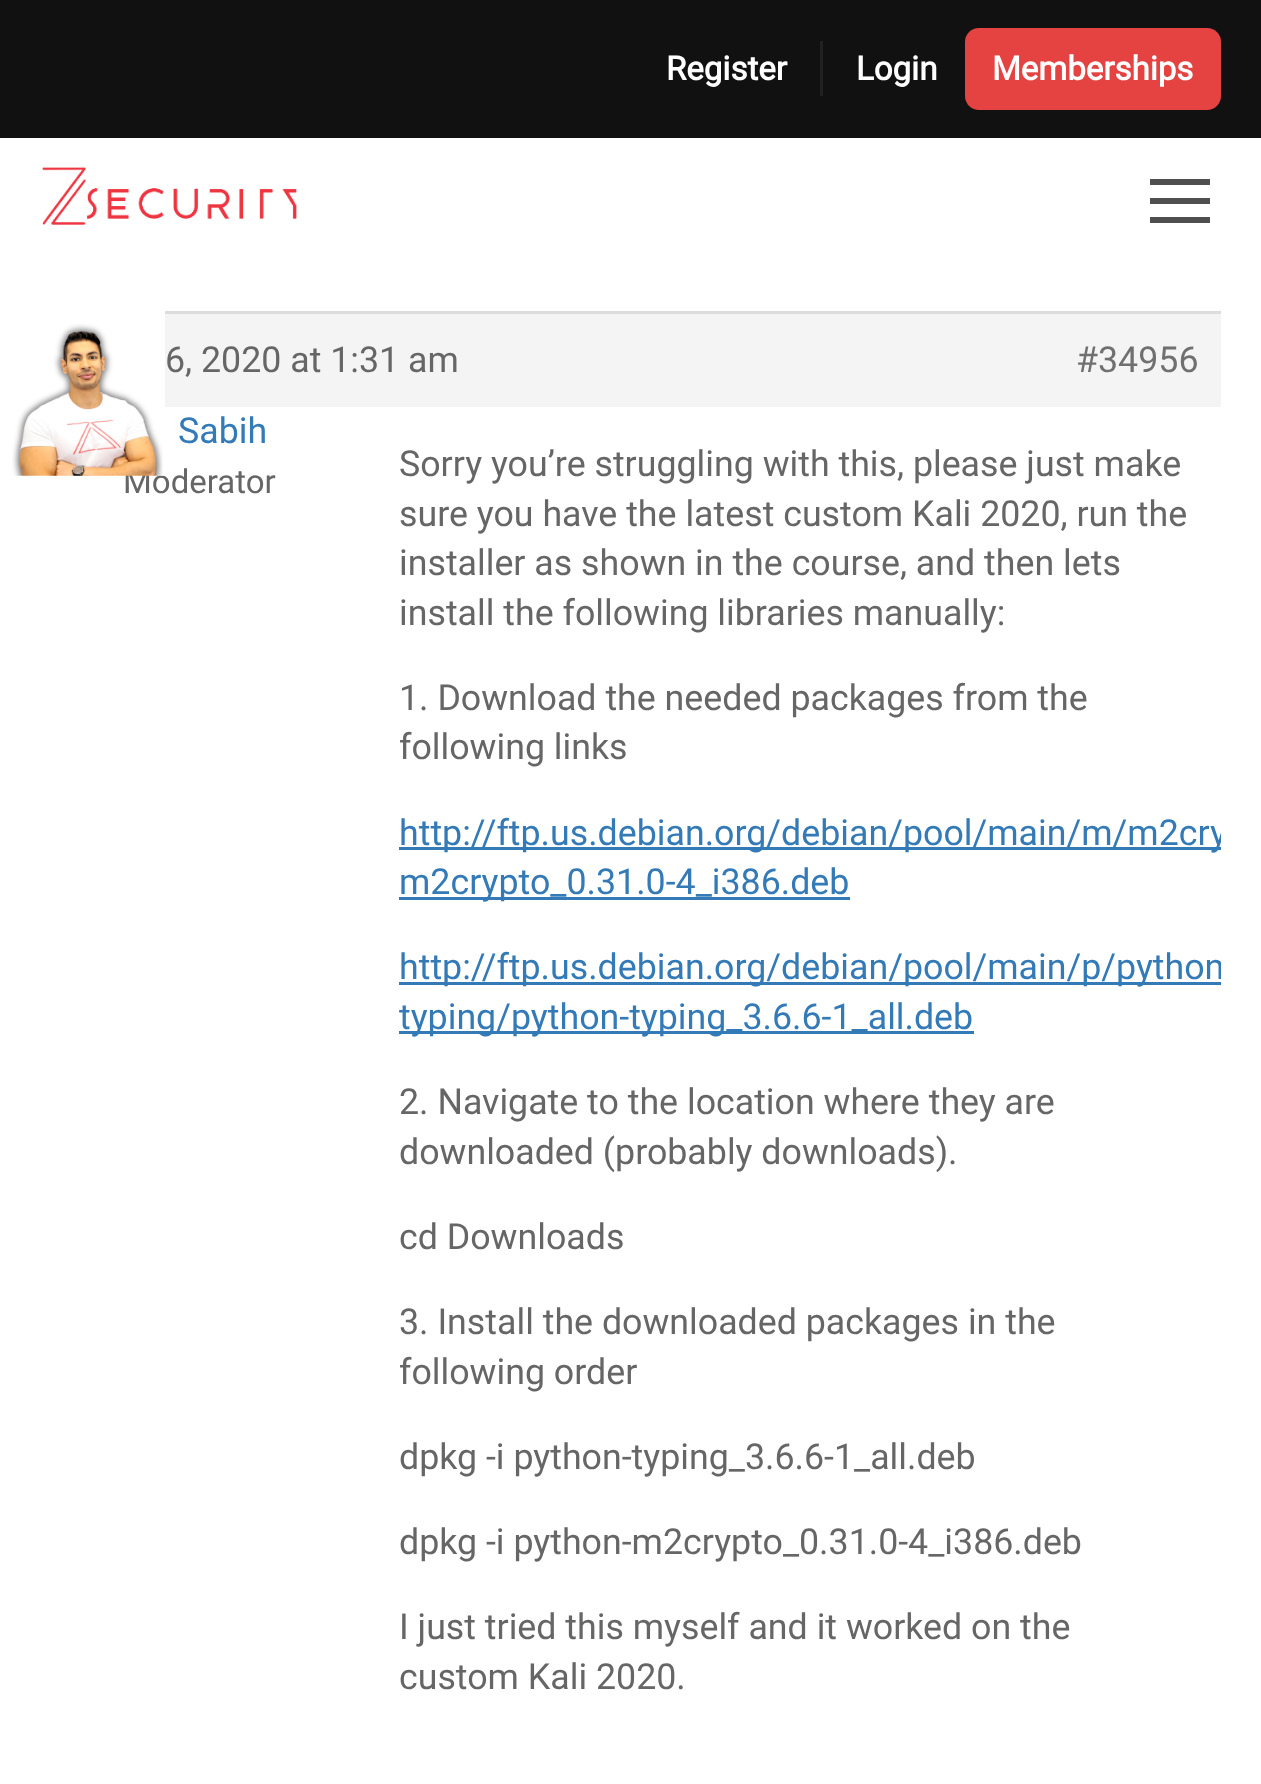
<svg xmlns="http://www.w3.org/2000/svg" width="1261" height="1784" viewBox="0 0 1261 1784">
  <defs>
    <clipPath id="clip1"><path d="M41 311h1180v1424H41z"/></clipPath>
  </defs>
  <rect width="100%" height="100%" fill="#fff"/>
  <path d="M0 0h1261v138H0z" fill="#111"/>
  <path d="M820 41h3v55H820z" fill="#212121"/>
  <rect x="965" y="28" width="256" height="82" rx="14" fill="#e54242"/>
  <image x="42" y="167" width="255" height="58" href="img/1.png"/>
  <path d="M1150 179h60v6H1150z" fill="#4f4f4f"/>
  <path d="M1150 198h60v6H1150z" fill="#4f4f4f"/>
  <path d="M1150 217h60v6H1150z" fill="#4f4f4f"/>
  <path d="M165 314h1056v93H165z" fill="#f4f4f4"/>
  <path d="M165 311h1056v3H165z" fill="#ddd"/>
  <path d="M399 847h822v3H399z" fill="#337ab7"/>
  <path d="M399 897h451v3H399z" fill="#337ab7"/>
  <path d="M399 982h822v3H399z" fill="#337ab7"/>
  <path d="M399 1031h575v3H399z" fill="#337ab7"/>
  <g font-family="Roboto" font-size="33" font-weight="bold" fill="#fff">
    <text x="666" y="80">Register</text>
    <text x="856" y="80">Login</text>
    <text x="992" y="80">Memberships</text>
  </g>
  <text x="165" y="372" font-family="Roboto" font-size="35.75" fill="#666">6, 2020 at 1:31 am</text>
  <text x="1076" y="372" font-family="Roboto" font-size="35.75" fill="#707070">#34956</text>
  <text x="178" y="443" font-family="Roboto" font-size="35.75" fill="#337ab7">Sabih</text>
  <text x="123" y="493" font-family="Roboto" font-size="33" fill="#666">Moderator</text>
  <image x="12" y="311" width="153" height="165" href="img/2.png"/>
  <g font-family="Roboto" font-size="35.75" fill="#666">
    <text x="399" y="476">Sorry you’re struggling with this, please just make</text>
    <text x="399" y="526">sure you have the latest custom Kali 2020, run the</text>
    <text x="399" y="575">installer as shown in the course, and then lets</text>
    <text x="399" y="625">install the following libraries manually:</text>
    <text x="399" y="710">1. Download the needed packages from the</text>
    <text x="399" y="759">following links</text>
  </g>
  <g clip-path="url(#clip1)">
    <text x="399" y="845" font-family="Roboto" font-size="35.75" fill="#337ab7">http://ftp.us.debian.org/debian/pool/main/m/m2cry</text>
  </g>
  <text x="399" y="894" font-family="Roboto" font-size="35.75" fill="#337ab7">m2crypto_0.31.0-4_i386.deb</text>
  <g clip-path="url(#clip1)">
    <text x="399" y="979" font-family="Roboto" font-size="35.75" fill="#337ab7">http://ftp.us.debian.org/debian/pool/main/p/python</text>
  </g>
  <text x="399" y="1029" font-family="Roboto" font-size="35.75" fill="#337ab7">typing/python-typing_3.6.6-1_all.deb</text>
  <g font-family="Roboto" font-size="35.75" fill="#666">
    <text x="399" y="1114">2. Navigate to the location where they are</text>
    <text x="399" y="1164">downloaded (probably downloads).</text>
    <text x="399" y="1249">cd Downloads</text>
    <text x="399" y="1334">3. Install the downloaded packages in the</text>
    <text x="399" y="1384">following order</text>
    <text x="399" y="1469">dpkg -i python-typing_3.6.6-1_all.deb</text>
    <text x="399" y="1554">dpkg -i python-m2crypto_0.31.0-4_i386.deb</text>
    <text x="399" y="1639">I just tried this myself and it worked on the</text>
    <text x="399" y="1689">custom Kali 2020.</text>
  </g>
</svg>
